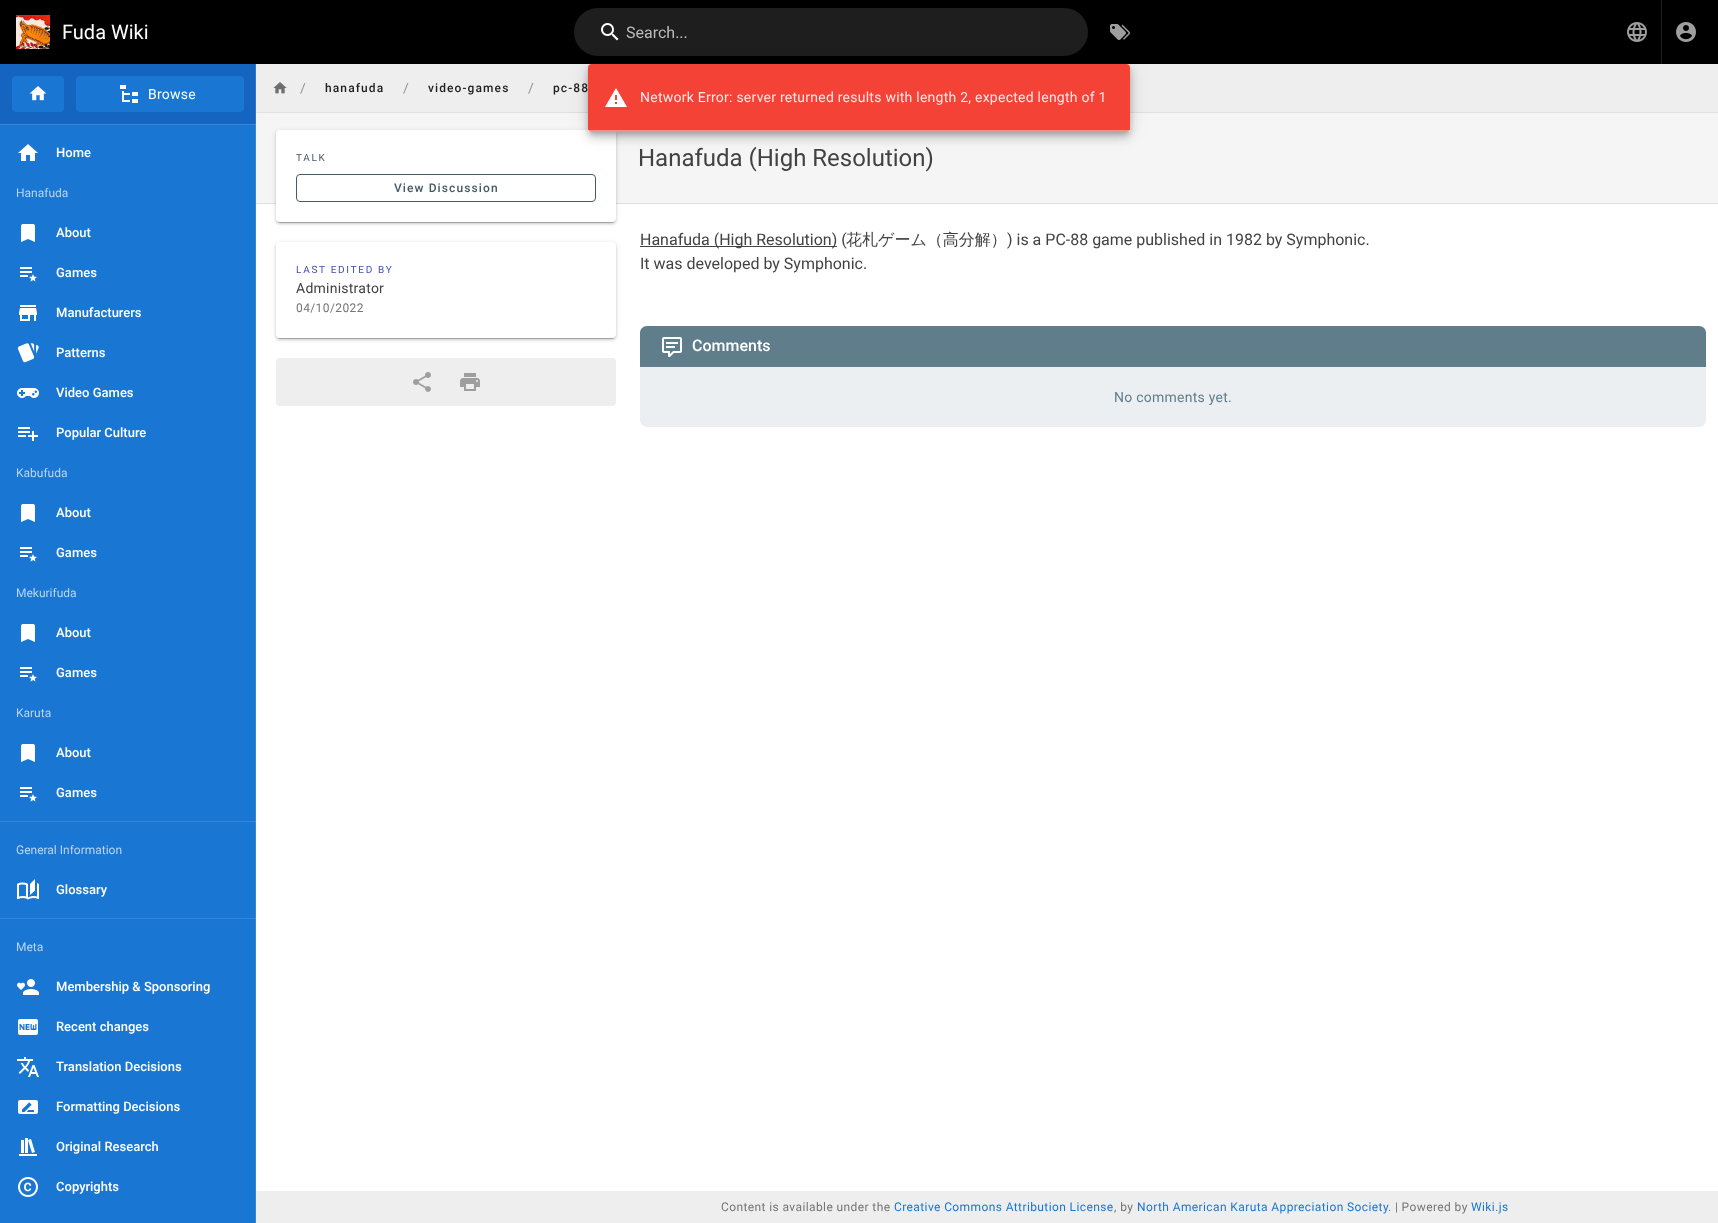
<svg xmlns="http://www.w3.org/2000/svg" width="1718" height="1223" viewBox="0 0 1718 1223">
  <rect width="100%" height="100%" fill="#fff"/>
  <path d="M0 0h1718v64H0z" fill="#000"/>
  <image x="16" y="15" width="34" height="34" href="img/1.png"/>
  <rect x="574" y="8" width="514" height="48" rx="24" fill="#1e1e1e"/>
  <image x="601" y="23" width="18" height="18" href="img/2.png"/>
  <image x="1110" y="24" width="20" height="16" href="img/3.png"/>
  <image x="1627" y="22" width="20" height="20" href="img/4.png"/>
  <path d="M1661 0h1v64H1661z" fill="#1f1f1f"/>
  <image x="1676" y="22" width="20" height="20" href="img/5.png"/>
  <path d="M0 125h255v1098H0z" fill="#1976d2"/>
  <path d="M255 125h1v1098H255z" fill="#3586d7"/>
  <path d="M0 64h255v60H0z" fill="#1565c0"/>
  <path d="M255 64h1v60H255z" fill="#3177c8"/>
  <rect x="12" y="76" width="52" height="36" rx="4" fill="#1976d2"/>
  <image x="29" y="86" width="18" height="15" href="img/6.png"/>
  <rect x="76" y="76" width="168" height="36" rx="4" fill="#1976d2"/>
  <image x="120" y="85" width="18" height="18" href="img/7.png"/>
  <path d="M0 124h256v1H0z" fill="#3586d7"/>
  <path d="M255 124h1v1H255z" fill="#4d95dc"/>
  <image x="18" y="144" width="20" height="17" href="img/8.png"/>
  <image x="21" y="224" width="14" height="18" href="img/9.png"/>
  <image x="20" y="267" width="17" height="15" href="img/10.png"/>
  <image x="19" y="305" width="18" height="16" href="img/11.png"/>
  <image x="17" y="343" width="22" height="20" href="img/12.png"/>
  <image x="17" y="388" width="22" height="10" href="img/13.png"/>
  <image x="18" y="427" width="20" height="14" href="img/14.png"/>
  <image x="21" y="504" width="14" height="18" href="img/9.png"/>
  <image x="20" y="547" width="17" height="15" href="img/10.png"/>
  <image x="21" y="624" width="14" height="18" href="img/9.png"/>
  <image x="20" y="667" width="17" height="15" href="img/10.png"/>
  <image x="21" y="744" width="14" height="18" href="img/9.png"/>
  <image x="20" y="787" width="17" height="15" href="img/10.png"/>
  <path d="M0 821h256v1H0z" fill="#3586d7"/>
  <path d="M255 821h1v1H255z" fill="#4d95dc"/>
  <image x="17" y="879" width="22" height="21" href="img/15.png"/>
  <path d="M0 918h256v1H0z" fill="#3586d7"/>
  <path d="M255 918h1v1H255z" fill="#4d95dc"/>
  <image x="17" y="979" width="22" height="16" href="img/16.png"/>
  <image x="18" y="1019" width="20" height="16" href="img/17.png"/>
  <image x="17" y="1057" width="22" height="20" href="img/18.png"/>
  <image x="18" y="1100" width="20" height="14" href="img/19.png"/>
  <image x="19" y="1138" width="18" height="18" href="img/20.png"/>
  <image x="18" y="1177" width="20" height="20" href="img/21.png"/>
  <path d="M256 64h1462v48H256z" fill="#eee"/>
  <image x="273" y="82" width="14" height="12" href="img/22.png"/>
  <path d="M256 112h1462v1H256z" fill="#e0e0e0"/>
  <path d="M256 113h1462v90H256z" fill="#f5f5f5"/>
  <path d="M256 203h1462v1H256z" fill="#e0e0e0"/>
  <rect x="276" y="131" width="340" height="92" rx="4" fill="#0000001f" filter="blur(2.5px)"/>
  <rect x="276" y="132" width="340" height="92" rx="4" fill="#00000024" filter="blur(1px)"/>
  <rect x="278" y="135" width="336" height="88" rx="2" fill="#00000033" filter="blur(0.5px)"/>
  <rect x="276" y="130" width="340" height="92" rx="4" fill="#fff"/>
  <rect x="296.5" y="174.5" width="299" height="27" rx="3.5" fill="none" stroke="#455a64"/>
  <rect x="276" y="243" width="340" height="96" rx="4" fill="#0000001f" filter="blur(2.5px)"/>
  <rect x="276" y="244" width="340" height="96" rx="4" fill="#00000024" filter="blur(1px)"/>
  <rect x="278" y="247" width="336" height="92" rx="2" fill="#00000033" filter="blur(0.5px)"/>
  <rect x="276" y="242" width="340" height="96" rx="4" fill="#fff"/>
  <rect x="276" y="358" width="340" height="48" rx="4" fill="#eee"/>
  <image x="413" y="372" width="18" height="20" href="img/23.png"/>
  <image x="460" y="373" width="20" height="18" href="img/24.png"/>
  <path d="M640 246h197v1H640z" fill="#424242"/>
  <path d="M647 326H1699C1703 326 1706 329 1706 333V367H640V333C640 329 643 326 647 326Z" fill="#607d8b"/>
  <image x="662" y="337" width="20" height="20" href="img/25.png"/>
  <path d="M640 367H1706V420C1706 424 1703 427 1699 427H647C643 427 640 424 640 420Z" fill="#eceff1"/>
  <rect x="588" y="65" width="542" height="68" rx="4" fill="#0000001f" filter="blur(9px)"/>
  <rect x="588" y="70" width="542" height="68" rx="4" fill="#00000024" filter="blur(5px)"/>
  <rect x="589" y="68" width="540" height="66" rx="3" fill="#00000033" filter="blur(2.5px)"/>
  <rect x="588" y="64" width="542" height="68" rx="4" fill="#f44336"/>
  <image x="605" y="88" width="22" height="19" href="img/26.png"/>
  <path d="M588 130h542v2H588z" fill="#ffffff66"/>
  <path d="M256 1191h1462v32H256z" fill="#eee"/>
  <text x="62" y="39" font-family="Roboto" font-size="20" fill="#fff">Fuda Wiki</text>
  <text x="626" y="38" font-family="Roboto" font-size="16" fill="#bcbcbc">Search...</text>
  <text x="148" y="99" font-family="Roboto" font-size="14" letter-spacing="0.25" fill="#fff">Browse</text>
  <text x="56" y="157" font-family="Roboto" font-size="13" font-weight="500" fill="#fff">Home</text>
  <text x="16" y="197" font-family="Roboto" font-size="12" fill="#bad6f2">Hanafuda</text>
  <g font-family="Roboto" font-size="13" font-weight="500" fill="#fff">
    <text x="56" y="237">About</text>
    <text x="56" y="277">Games</text>
    <text x="56" y="317">Manufacturers</text>
    <text x="56" y="357">Patterns</text>
    <text x="56" y="397">Video Games</text>
    <text x="56" y="437">Popular Culture</text>
  </g>
  <text x="16" y="477" font-family="Roboto" font-size="12" fill="#bad6f2">Kabufuda</text>
  <g font-family="Roboto" font-size="13" font-weight="500" fill="#fff">
    <text x="56" y="517">About</text>
    <text x="56" y="557">Games</text>
  </g>
  <text x="16" y="597" font-family="Roboto" font-size="12" fill="#bad6f2">Mekurifuda</text>
  <g font-family="Roboto" font-size="13" font-weight="500" fill="#fff">
    <text x="56" y="637">About</text>
    <text x="56" y="677">Games</text>
  </g>
  <text x="16" y="717" font-family="Roboto" font-size="12" fill="#bad6f2">Karuta</text>
  <g font-family="Roboto" font-size="13" font-weight="500" fill="#fff">
    <text x="56" y="757">About</text>
    <text x="56" y="797">Games</text>
  </g>
  <text x="16" y="854" font-family="Roboto" font-size="12" fill="#bad6f2">General Information</text>
  <text x="56" y="894" font-family="Roboto" font-size="13" font-weight="500" fill="#fff">Glossary</text>
  <text x="16" y="951" font-family="Roboto" font-size="12" fill="#bad6f2">Meta</text>
  <g font-family="Roboto" font-size="13" font-weight="500" fill="#fff">
    <text x="56" y="991">Membership &amp; Sponsoring</text>
    <text x="56" y="1031">Recent changes</text>
    <text x="56" y="1071">Translation Decisions</text>
    <text x="56" y="1111">Formatting Decisions</text>
    <text x="56" y="1151">Original Research</text>
    <text x="56" y="1191">Copyrights</text>
  </g>
  <text x="300" y="93" font-family="Roboto" font-size="14" fill="#949494">/</text>
  <text x="325" y="92" font-family="Roboto" font-size="12" font-weight="500" letter-spacing="1.1" fill="#1f1f1f">hanafuda</text>
  <text x="403" y="93" font-family="Roboto" font-size="14" fill="#949494">/</text>
  <text x="428" y="92" font-family="Roboto" font-size="12" font-weight="500" letter-spacing="1.1" fill="#1f1f1f">video-games</text>
  <text x="528" y="93" font-family="Roboto" font-size="14" fill="#949494">/</text>
  <text x="553" y="92" font-family="Roboto" font-size="12" font-weight="500" letter-spacing="1.1" fill="#1f1f1f">pc-88</text>
  <text x="638" y="166" font-family="Roboto" font-size="24" fill="#424242">Hanafuda (High Resolution)</text>
  <text x="296" y="161" font-family="Roboto" font-size="10" letter-spacing="1.7" fill="#455a64">TALK</text>
  <text x="394" y="192" font-family="Roboto" font-size="12" font-weight="500" letter-spacing="1.1" fill="#455a64">View Discussion</text>
  <text x="296" y="273" font-family="Roboto" font-size="10" letter-spacing="1.7" fill="#3f51b5">LAST EDITED BY</text>
  <text x="296" y="293" font-family="Roboto" font-size="14" letter-spacing="0.25" fill="#424242">Administrator</text>
  <text x="296" y="312" font-family="Roboto" font-size="12" letter-spacing="0.4" fill="#757575">04/10/2022</text>
  <text x="640" y="245" font-family="Roboto" font-size="16" fill="#424242">Hanafuda (High Resolution) (</text>
  <text x="846" y="245" font-family="WenQuanYi Zen Hei" font-size="16" font-weight="500" fill="#424242">花札ゲーム（高分解）</text>
  <g font-family="Roboto" font-size="16" fill="#424242">
    <text x="1007" y="245">) is a PC-88 game published in 1982 by Symphonic.</text>
    <text x="640" y="269">It was developed by Symphonic.</text>
  </g>
  <text x="692" y="351" font-family="Roboto" font-size="16" font-weight="500" fill="#fff">Comments</text>
  <text x="1114" y="402" font-family="Roboto" font-size="14" letter-spacing="0.25" fill="#607d8b">No comments yet.</text>
  <text x="640" y="102" font-family="Roboto" font-size="14" letter-spacing="0.25" fill="#fee7e5">Network Error: server returned results with length 2, expected length of 1</text>
  <text x="721" y="1211" font-family="Roboto" font-size="12" letter-spacing="0.4" fill="#757575">Content is available under the</text>
  <text x="894" y="1211" font-family="Roboto" font-size="12" letter-spacing="0.4" fill="#1976d2">Creative Commons Attribution License</text>
  <text x="1114" y="1211" font-family="Roboto" font-size="12" letter-spacing="0.4" fill="#757575">, by</text>
  <text x="1137" y="1211" font-family="Roboto" font-size="12" letter-spacing="0.4" fill="#1976d2">North American Karuta Appreciation Society</text>
  <text x="1388" y="1211" font-family="Roboto" font-size="12" letter-spacing="0.4" fill="#757575">. | Powered by</text>
  <text x="1471" y="1211" font-family="Roboto" font-size="12" letter-spacing="0.4" fill="#1976d2">Wiki.js</text>
</svg>
